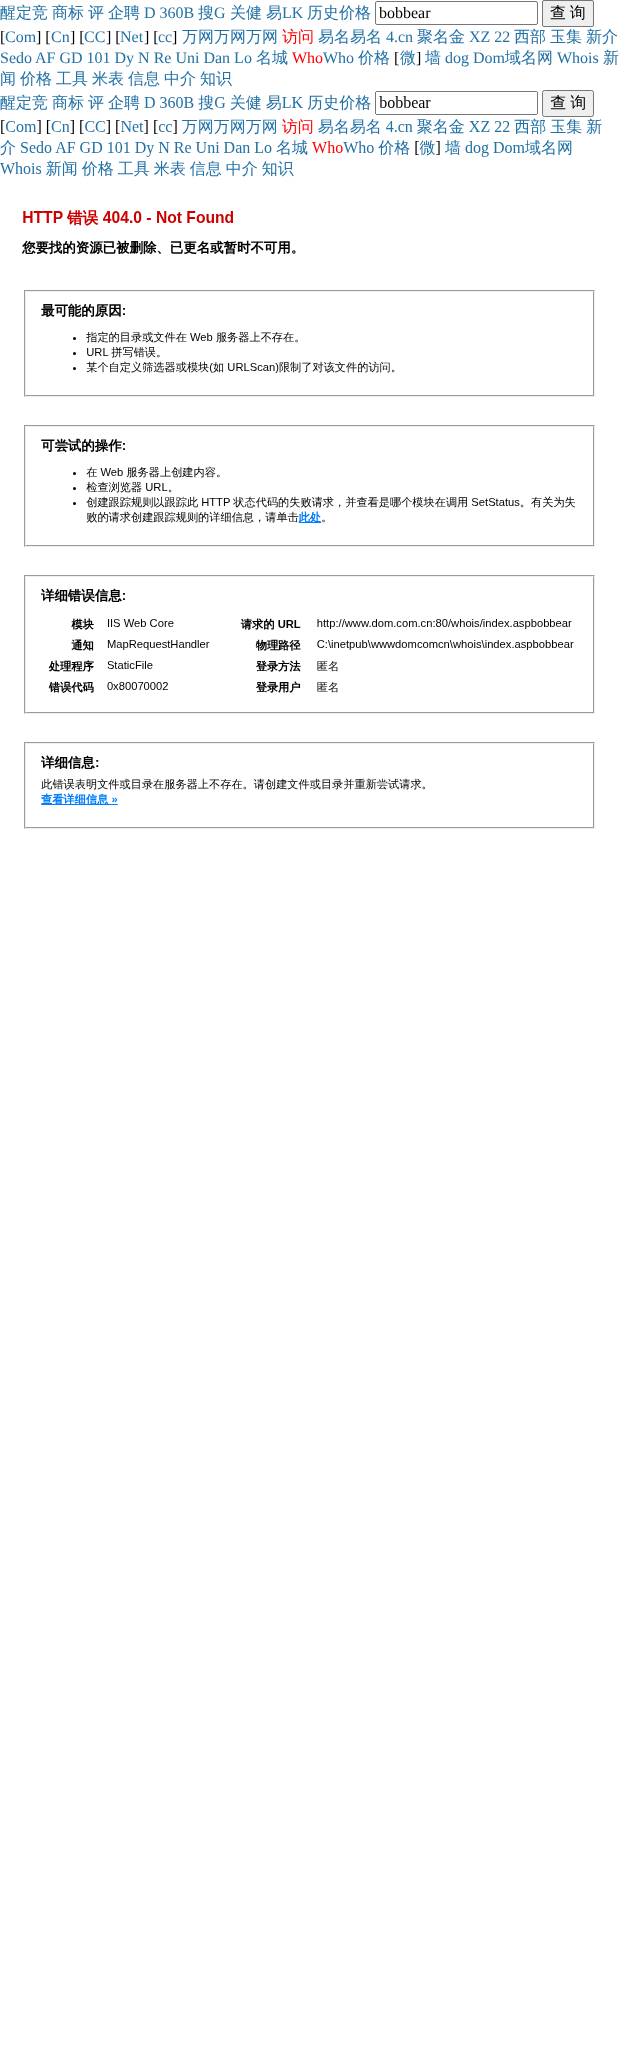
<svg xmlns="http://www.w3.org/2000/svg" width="623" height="2045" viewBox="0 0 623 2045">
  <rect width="100%" height="100%" fill="#fff"/>
  <rect x="375.5" y="1.5" width="162" height="23" rx="1.5" fill="none" stroke="#767676"/>
  <rect x="542.5" y="0.5" width="51" height="26" rx="1.5" fill="#efefef" stroke="#767676"/>
  <image x="0" y="90" width="602" height="739" href="img/1.png"/>
  <g font-family="WenQuanYi Zen Hei" font-size="16" font-weight="500" fill="#2271a5">
    <text x="0" y="18">醒定竞</text>
    <text x="52" y="18">商标</text>
    <text x="88" y="18">评</text>
    <text x="108" y="18">企聘</text>
  </g>
  <text x="144" y="18" font-family="Liberation Serif" font-size="16" fill="#2271a5">D 360B</text>
  <text x="198" y="18" font-family="WenQuanYi Zen Hei" font-size="16" font-weight="500" fill="#2271a5">搜</text>
  <text x="214" y="18" font-family="Liberation Serif" font-size="16" fill="#2271a5">G</text>
  <g font-family="WenQuanYi Zen Hei" font-size="16" font-weight="500" fill="#2271a5">
    <text x="230" y="18">关健</text>
    <text x="266" y="18">易</text>
  </g>
  <text x="282" y="18" font-family="Liberation Serif" font-size="16" fill="#2271a5">LK</text>
  <text x="307" y="18" font-family="WenQuanYi Zen Hei" font-size="16" font-weight="500" fill="#2271a5">历史价格</text>
  <text x="379" y="18" font-family="Liberation Serif" font-size="16" fill="#000">bobbear</text>
  <text x="550" y="18" word-spacing="-1" font-family="WenQuanYi Zen Hei" font-size="16" font-weight="500" fill="#000">查 询</text>
  <text x="0" y="42" font-family="Liberation Serif" font-size="16" fill="#000">[</text>
  <text x="5" y="42" font-family="Liberation Serif" font-size="16" fill="#2271a5">Com</text>
  <text x="36" y="42" font-family="Liberation Serif" font-size="16" fill="#000">] [</text>
  <text x="51" y="42" font-family="Liberation Serif" font-size="16" fill="#2271a5">Cn</text>
  <text x="70" y="42" font-family="Liberation Serif" font-size="16" fill="#000">] [</text>
  <text x="84" y="42" font-family="Liberation Serif" font-size="16" fill="#2271a5">CC</text>
  <text x="106" y="42" font-family="Liberation Serif" font-size="16" fill="#000">] [</text>
  <text x="120" y="42" font-family="Liberation Serif" font-size="16" fill="#2271a5">Net</text>
  <text x="144" y="42" font-family="Liberation Serif" font-size="16" fill="#000">] [</text>
  <text x="158" y="42" font-family="Liberation Serif" font-size="16" fill="#2271a5">cc</text>
  <text x="172" y="42" font-family="Liberation Serif" font-size="16" fill="#000">]</text>
  <text x="182" y="42" font-family="WenQuanYi Zen Hei" font-size="16" font-weight="500" fill="#2271a5">万网万网万网</text>
  <text x="282" y="42" font-family="WenQuanYi Zen Hei" font-size="16" font-weight="500" fill="#f00">访问</text>
  <text x="318" y="42" font-family="WenQuanYi Zen Hei" font-size="16" font-weight="500" fill="#2271a5">易名易名</text>
  <text x="386" y="42" font-family="Liberation Serif" font-size="16" fill="#2271a5">4.cn</text>
  <text x="417" y="42" font-family="WenQuanYi Zen Hei" font-size="16" font-weight="500" fill="#2271a5">聚名金</text>
  <text x="469" y="42" font-family="Liberation Serif" font-size="16" fill="#2271a5">XZ 22</text>
  <g font-family="WenQuanYi Zen Hei" font-size="16" font-weight="500" fill="#2271a5">
    <text x="514" y="42">西部</text>
    <text x="550" y="42">玉集</text>
    <text x="586" y="42">新介</text>
  </g>
  <g font-family="Liberation Serif" font-size="16" fill="#2271a5">
    <text x="0" y="63">Sedo</text>
    <text x="35" y="63">AF GD 101 Dy N Re Uni Dan Lo</text>
  </g>
  <text x="256" y="63" font-family="WenQuanYi Zen Hei" font-size="16" font-weight="500" fill="#2271a5">名城</text>
  <text x="292" y="63" font-family="Liberation Serif" font-size="16" fill="#f00">Who</text>
  <text x="323" y="63" font-family="Liberation Serif" font-size="16" fill="#2271a5">Who</text>
  <text x="358" y="63" font-family="WenQuanYi Zen Hei" font-size="16" font-weight="500" fill="#2271a5">价格</text>
  <text x="394" y="63" font-family="Liberation Serif" font-size="16" fill="#000">[</text>
  <text x="400" y="63" font-family="WenQuanYi Zen Hei" font-size="16" font-weight="500" fill="#2271a5">微</text>
  <text x="416" y="63" font-family="Liberation Serif" font-size="16" fill="#000">]</text>
  <text x="425" y="63" font-family="WenQuanYi Zen Hei" font-size="16" font-weight="500" fill="#2271a5">墙</text>
  <text x="445" y="63" font-family="Liberation Serif" font-size="16" fill="#2271a5">dog Dom</text>
  <text x="505" y="63" font-family="WenQuanYi Zen Hei" font-size="16" font-weight="500" fill="#2271a5">域名网</text>
  <text x="557" y="63" font-family="Liberation Serif" font-size="16" fill="#2271a5">Whois</text>
  <g font-family="WenQuanYi Zen Hei" font-size="16" font-weight="500" fill="#2271a5">
    <text x="603" y="63">新</text>
    <text x="0" y="84">闻</text>
    <text x="20" y="84">价格</text>
    <text x="56" y="84">工具</text>
    <text x="92" y="84">米表</text>
    <text x="128" y="84">信息</text>
    <text x="164" y="84">中介</text>
    <text x="200" y="84">知识</text>
  </g>
</svg>
